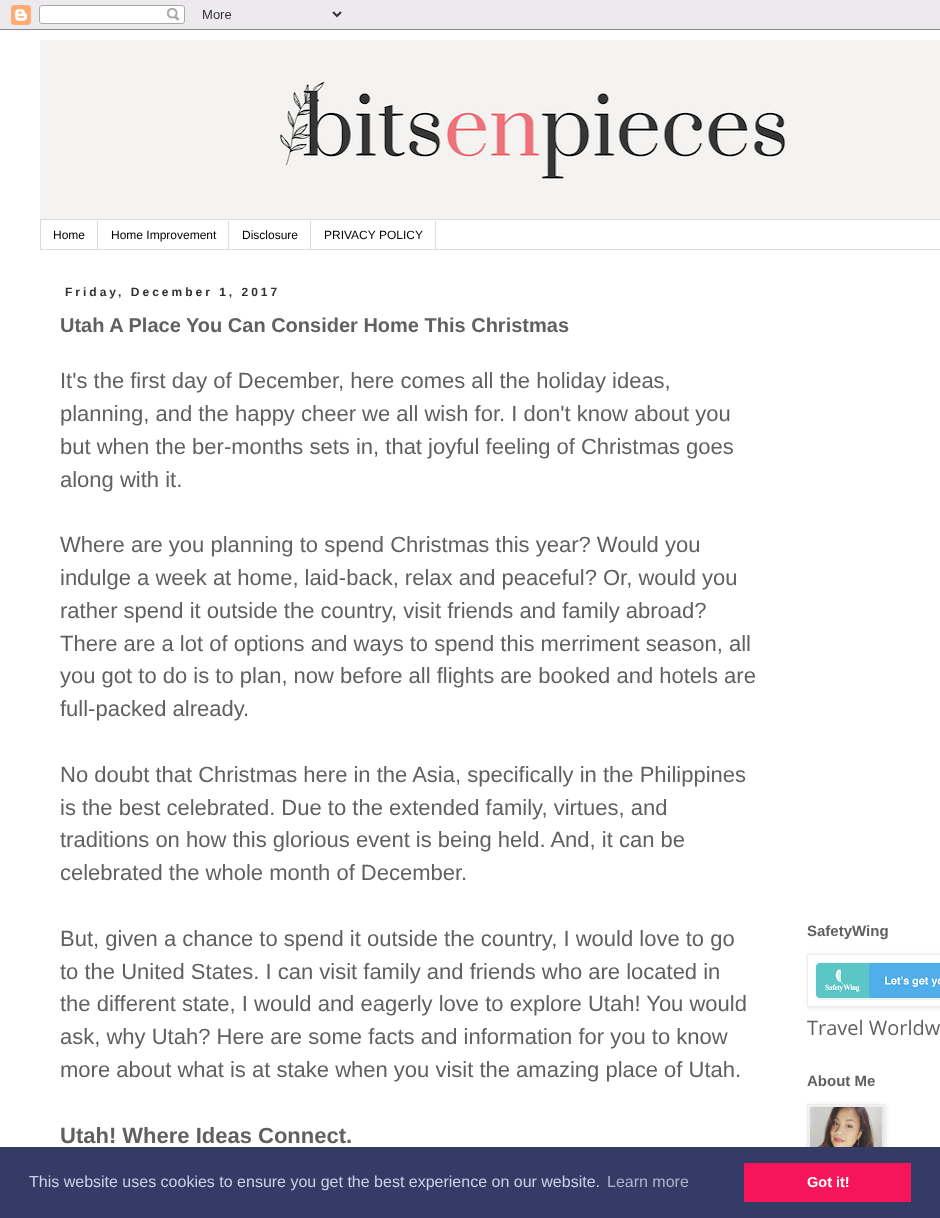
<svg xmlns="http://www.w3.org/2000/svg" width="940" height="1218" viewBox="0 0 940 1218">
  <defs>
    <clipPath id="clip1"><path d="M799 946H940V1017H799ZM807 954H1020V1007H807Z" clip-rule="evenodd"/></clipPath>
  </defs>
  <rect width="100%" height="100%" fill="#e1dce2"/>
  <image x="0" y="0" width="940" height="30" href="img/1.png"/>
  <path d="M0 30h940v1117H0z" fill="#fff"/>
  <image x="40" y="40" width="900" height="179" href="img/2.png"/>
  <path d="M40.5 219.5h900v30H40.5z" fill="none" stroke="#dbdbdb"/>
  <path d="M97 221h1v28H97z" fill="#dbdbdb"/>
  <path d="M228 221h1v28H228z" fill="#dbdbdb"/>
  <path d="M310 221h1v28H310z" fill="#dbdbdb"/>
  <path d="M435 221h1v28H435z" fill="#dbdbdb"/>
  <g clip-path="url(#clip1)">
    <path d="M808 955h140v53H808z" fill="#0000001a" filter="blur(2.5px)"/>
  </g>
  <path d="M807.5 954.5h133v52H807.5z" fill="none" stroke="#ececec"/>
  <image x="815" y="962" width="125" height="38" href="img/3.png"/>
  <path d="M808 1105h78v86H808z" fill="#0000001a" filter="blur(2.5px)"/>
  <path d="M807.5 1104.5h77v85H807.5z" fill="none" stroke="#ececec"/>
  <image x="810" y="1107" width="72" height="40" href="img/4.png"/>
  <path d="M0 1147h940v71H0z" fill="#343c66"/>
  <path d="M744 1163h167v39H744z" fill="#f71559"/>
  <g font-family="Liberation Sans" font-size="12" fill="#000">
    <text x="53" y="239">Home</text>
    <text x="111" y="239">Home Improvement</text>
    <text x="242" y="239">Disclosure</text>
    <text x="324" y="239">PRIVACY POLICY</text>
  </g>
  <text x="65" y="296" font-family="Liberation Sans" font-size="12" font-weight="bold" letter-spacing="3" fill="#303030">Friday, December 1, 2017</text>
  <text x="60" y="332" font-family="Liberation Sans" font-size="20" font-weight="bold" fill="#606060">Utah A Place You Can Consider Home This Christmas</text>
  <g font-family="Liberation Sans" font-size="22" fill="#606060">
    <text x="60" y="388">It's the first day of December, here comes all the holiday ideas,</text>
    <text x="60" y="421">planning, and the happy cheer we all wish for. I don't know about you</text>
    <text x="60" y="454">but when the ber-months sets in, that joyful feeling of Christmas goes</text>
    <text x="60" y="487">along with it.</text>
    <text x="60" y="552">Where are you planning to spend Christmas this year? Would you</text>
    <text x="60" y="585">indulge a week at home, laid-back, relax and peaceful? Or, would you</text>
    <text x="60" y="618">rather spend it outside the country, visit friends and family abroad?</text>
    <text x="60" y="651">There are a lot of options and ways to spend this merriment season, all</text>
    <text x="60" y="683">you got to do is to plan, now before all flights are booked and hotels are</text>
    <text x="60" y="716">full-packed already.</text>
    <text x="60" y="782">No doubt that Christmas here in the Asia, specifically in the Philippines</text>
    <text x="60" y="815">is the best celebrated. Due to the extended family, virtues, and</text>
    <text x="60" y="847">traditions on how this glorious event is being held. And, it can be</text>
    <text x="60" y="880">celebrated the whole month of December.</text>
    <text x="60" y="946">But, given a chance to spend it outside the country, I would love to go</text>
    <text x="60" y="979">to the United States. I can visit family and friends who are located in</text>
    <text x="60" y="1011">the different state, I would and eagerly love to explore Utah! You would</text>
    <text x="60" y="1044">ask, why Utah? Here are some facts and information for you to know</text>
    <text x="60" y="1077">more about what is at stake when you visit the amazing place of Utah.</text>
  </g>
  <text x="60" y="1143" font-family="Liberation Sans" font-size="22" font-weight="bold" fill="#606060">Utah! Where Ideas Connect.</text>
  <text x="807" y="936" font-family="Liberation Sans" font-size="15" font-weight="bold" fill="#606060">SafetyWing</text>
  <text x="807" y="1035" font-family="Open Sans" font-size="20" fill="#606060">Travel Worldw</text>
  <text x="807" y="1086" font-family="Liberation Sans" font-size="15" font-weight="bold" fill="#606060">About Me</text>
  <text x="29" y="1187" font-family="Liberation Sans" font-size="16" fill="#cfcfe8">This website uses cookies to ensure you get the best experience on our website.</text>
  <text x="607" y="1187" font-family="Liberation Sans" font-size="16" fill="#b0b2ce">Learn more</text>
  <text x="807" y="1187" font-family="Liberation Sans" font-size="14.5" font-weight="bold" fill="#fff">Got it!</text>
</svg>
